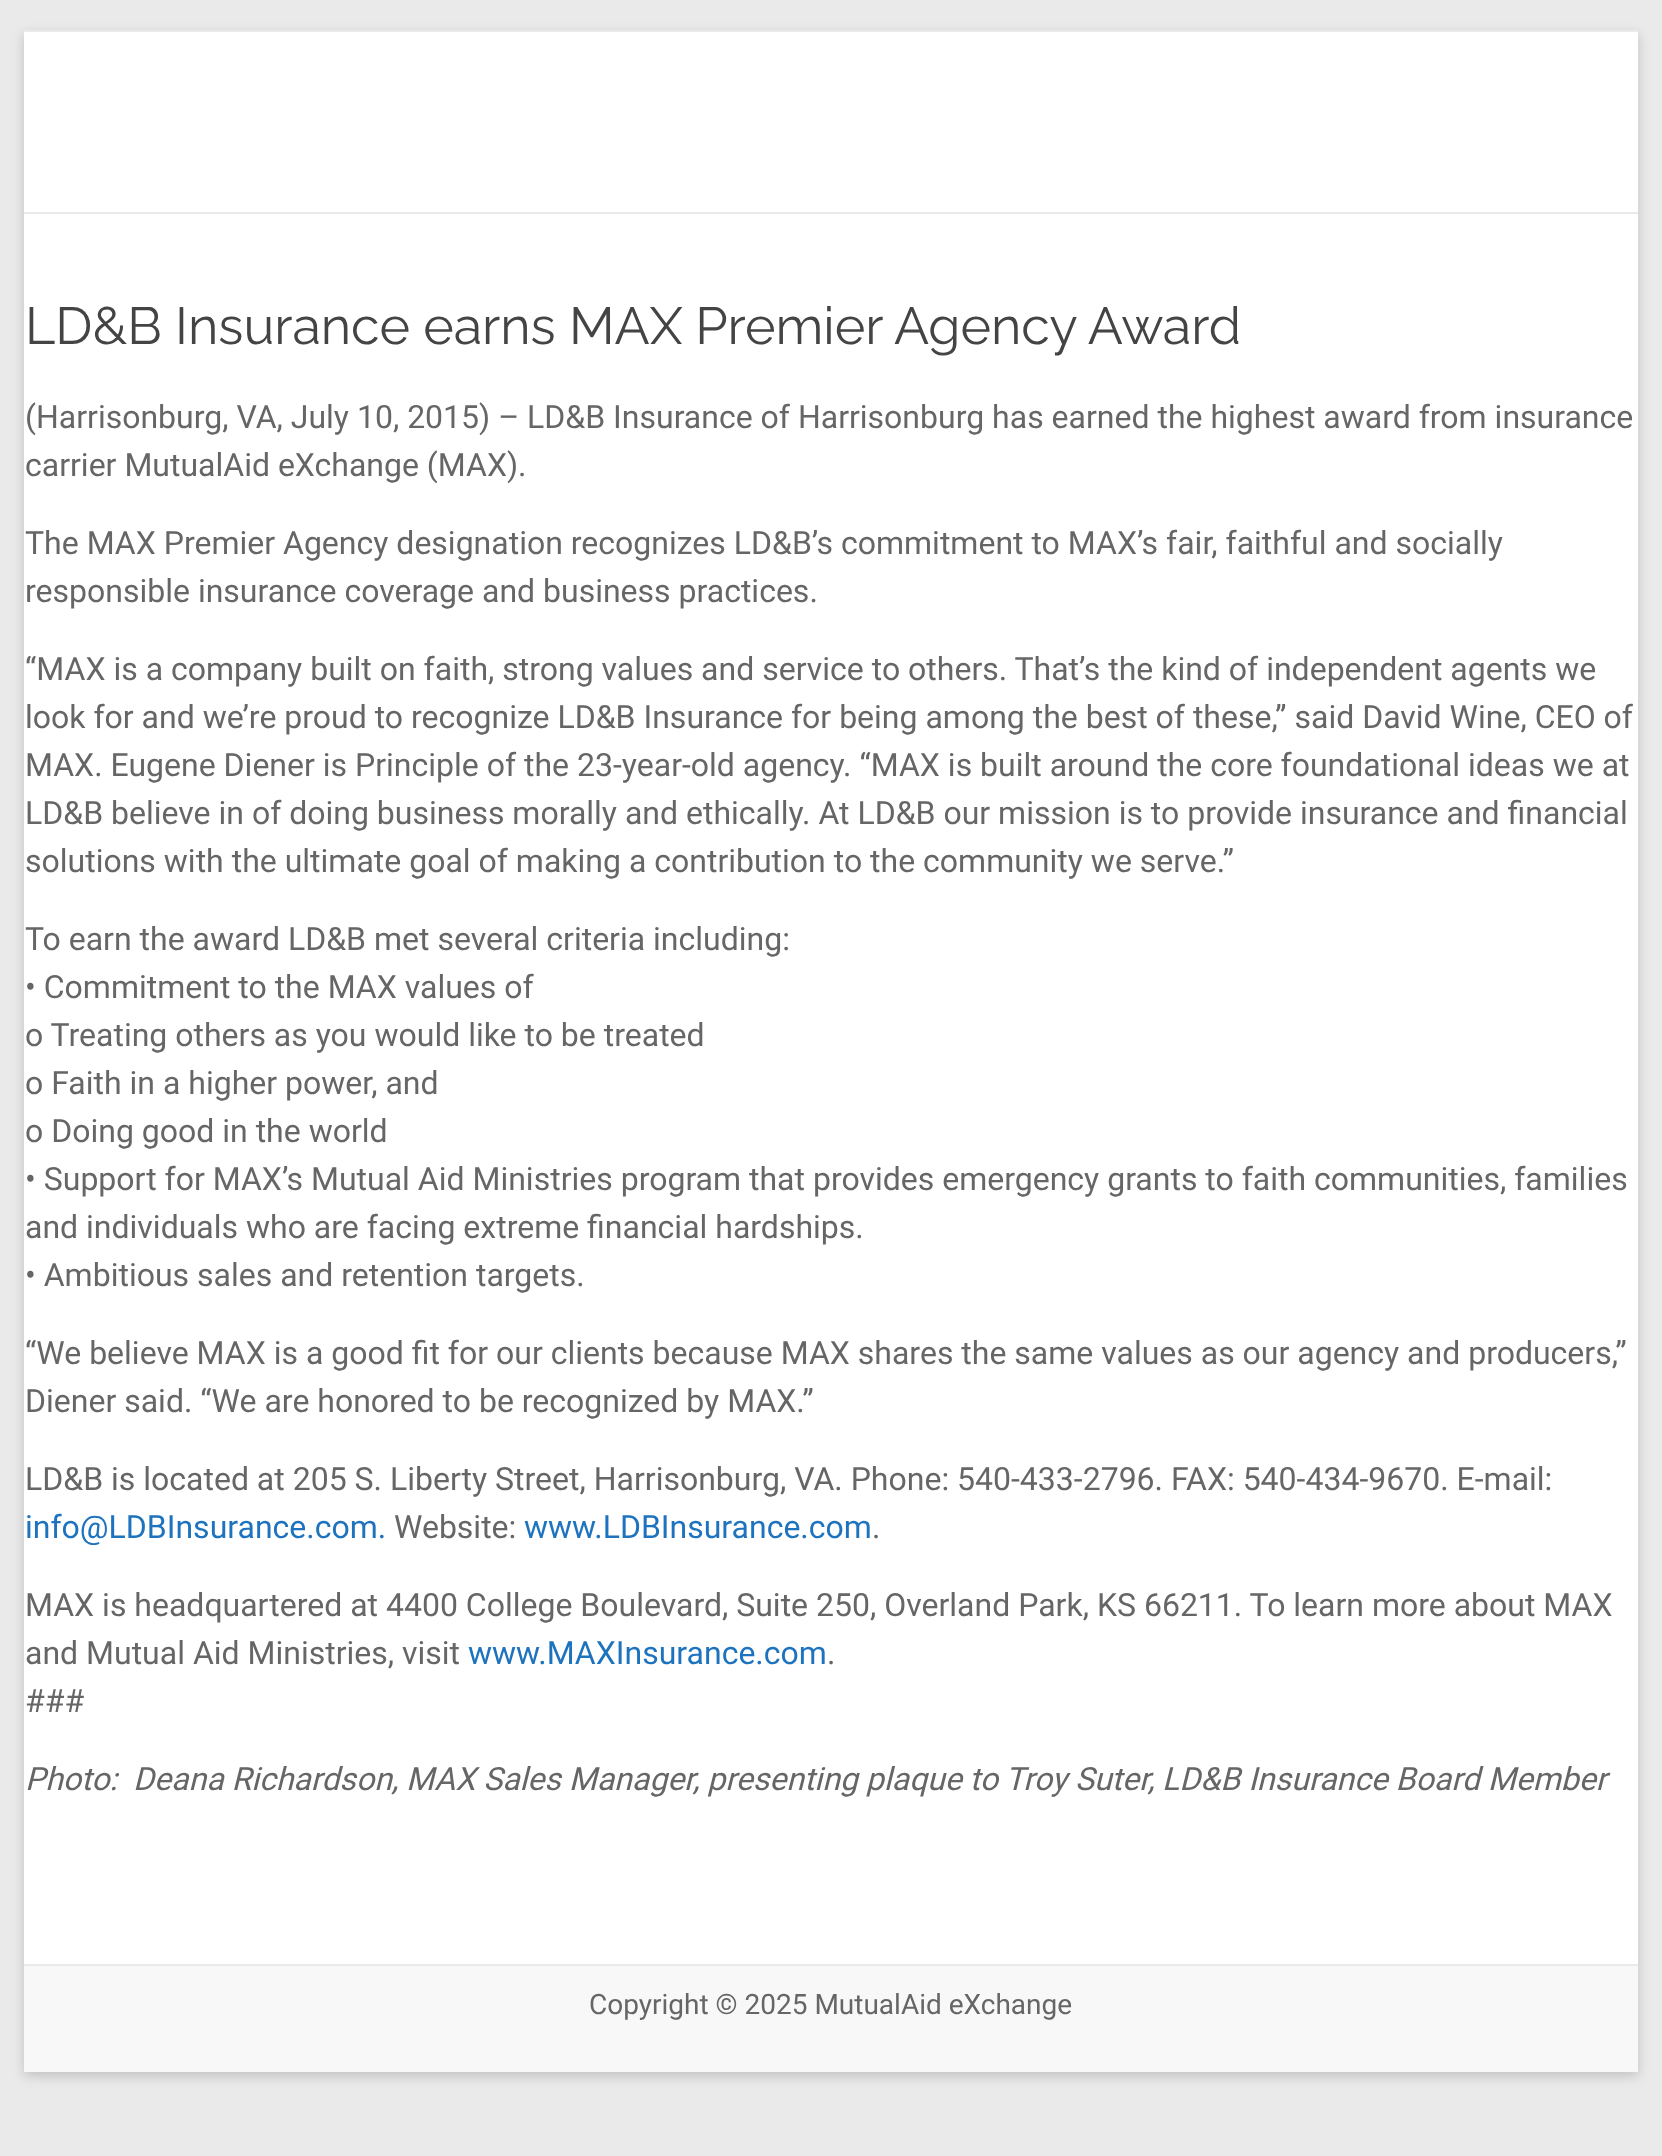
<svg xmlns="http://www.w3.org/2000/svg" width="1662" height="2156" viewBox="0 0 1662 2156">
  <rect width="100%" height="100%" fill="#eaeaea"/>
  <path d="M24 34h1614v2042H24z" fill="#6464644d" filter="blur(6px)"/>
  <path d="M24 32h1614v1932H24z" fill="#fff"/>
  <path d="M24 30h1614v2H24z" fill="#eaeaea"/>
  <path d="M24 212h1614v2H24z" fill="#eaeaea"/>
  <path d="M24 1966h1614v106H24z" fill="#f8f8f8"/>
  <path d="M24 1964h1614v2H24z" fill="#eaeaea"/>
  <text x="25" y="344" font-family="Raleway" font-size="52" font-weight="100" fill="#444">LD&amp;B Insurance earns MAX Premier Agency Award</text>
  <g font-family="Roboto" font-size="32" fill="#666">
    <text x="25" y="428">(Harrisonburg, VA, July 10, 2015) – LD&amp;B Insurance of Harrisonburg has earned the highest award from insurance</text>
    <text x="25" y="476">carrier MutualAid eXchange (MAX).</text>
    <text x="25" y="554">The MAX Premier Agency designation recognizes LD&amp;B’s commitment to MAX’s fair, faithful and socially</text>
    <text x="25" y="602">responsible insurance coverage and business practices.</text>
    <text x="25" y="680">“MAX is a company built on faith, strong values and service to others. That’s the kind of independent agents we</text>
    <text x="25" y="728">look for and we’re proud to recognize LD&amp;B Insurance for being among the best of these,” said David Wine, CEO of</text>
    <text x="25" y="776">MAX. Eugene Diener is Principle of the 23-year-old agency. “MAX is built around the core foundational ideas we at</text>
    <text x="25" y="824">LD&amp;B believe in of doing business morally and ethically. At LD&amp;B our mission is to provide insurance and financial</text>
    <text x="25" y="872">solutions with the ultimate goal of making a contribution to the community we serve.”</text>
    <text x="25" y="950">To earn the award LD&amp;B met several criteria including:</text>
    <text x="25" y="998">• Commitment to the MAX values of</text>
    <text x="25" y="1046">o Treating others as you would like to be treated</text>
    <text x="25" y="1094">o Faith in a higher power, and</text>
    <text x="25" y="1142">o Doing good in the world</text>
    <text x="25" y="1190">• Support for MAX’s Mutual Aid Ministries program that provides emergency grants to faith communities, families</text>
    <text x="25" y="1238">and individuals who are facing extreme financial hardships.</text>
    <text x="25" y="1286">• Ambitious sales and retention targets.</text>
    <text x="25" y="1364">“We believe MAX is a good fit for our clients because MAX shares the same values as our agency and producers,”</text>
    <text x="25" y="1412">Diener said. “We are honored to be recognized by MAX.”</text>
    <text x="25" y="1490">LD&amp;B is located at 205 S. Liberty Street, Harrisonburg, VA. Phone: 540-433-2796. FAX: 540-434-9670. E-mail:</text>
  </g>
  <text x="25" y="1538" font-family="Roboto" font-size="32" fill="#1e73be">info@LDBInsurance.com.</text>
  <text x="394" y="1538" font-family="Roboto" font-size="32" fill="#666">Website:</text>
  <text x="524" y="1538" font-family="Roboto" font-size="32" fill="#1e73be">www.LDBInsurance.com</text>
  <g font-family="Roboto" font-size="32" fill="#666">
    <text x="872" y="1538">.</text>
    <text x="25" y="1616">MAX is headquartered at 4400 College Boulevard, Suite 250, Overland Park, KS 66211. To learn more about MAX</text>
    <text x="25" y="1664">and Mutual Aid Ministries, visit</text>
  </g>
  <text x="468" y="1664" font-family="Roboto" font-size="32" fill="#1e73be">www.MAXInsurance.com</text>
  <g font-family="Roboto" font-size="32" fill="#666">
    <text x="827" y="1664">.</text>
    <text x="25" y="1712">###</text>
  </g>
  <text x="25" y="1790" font-family="Roboto" font-size="32" font-style="italic" fill="#666" xml:space="preserve">Photo:  Deana Richardson, MAX Sales Manager, presenting plaque to Troy Suter, LD&amp;B Insurance Board Member</text>
  <text x="589" y="2014" font-family="Roboto" font-size="28" fill="#666">Copyright © 2025 MutualAid eXchange</text>
</svg>
